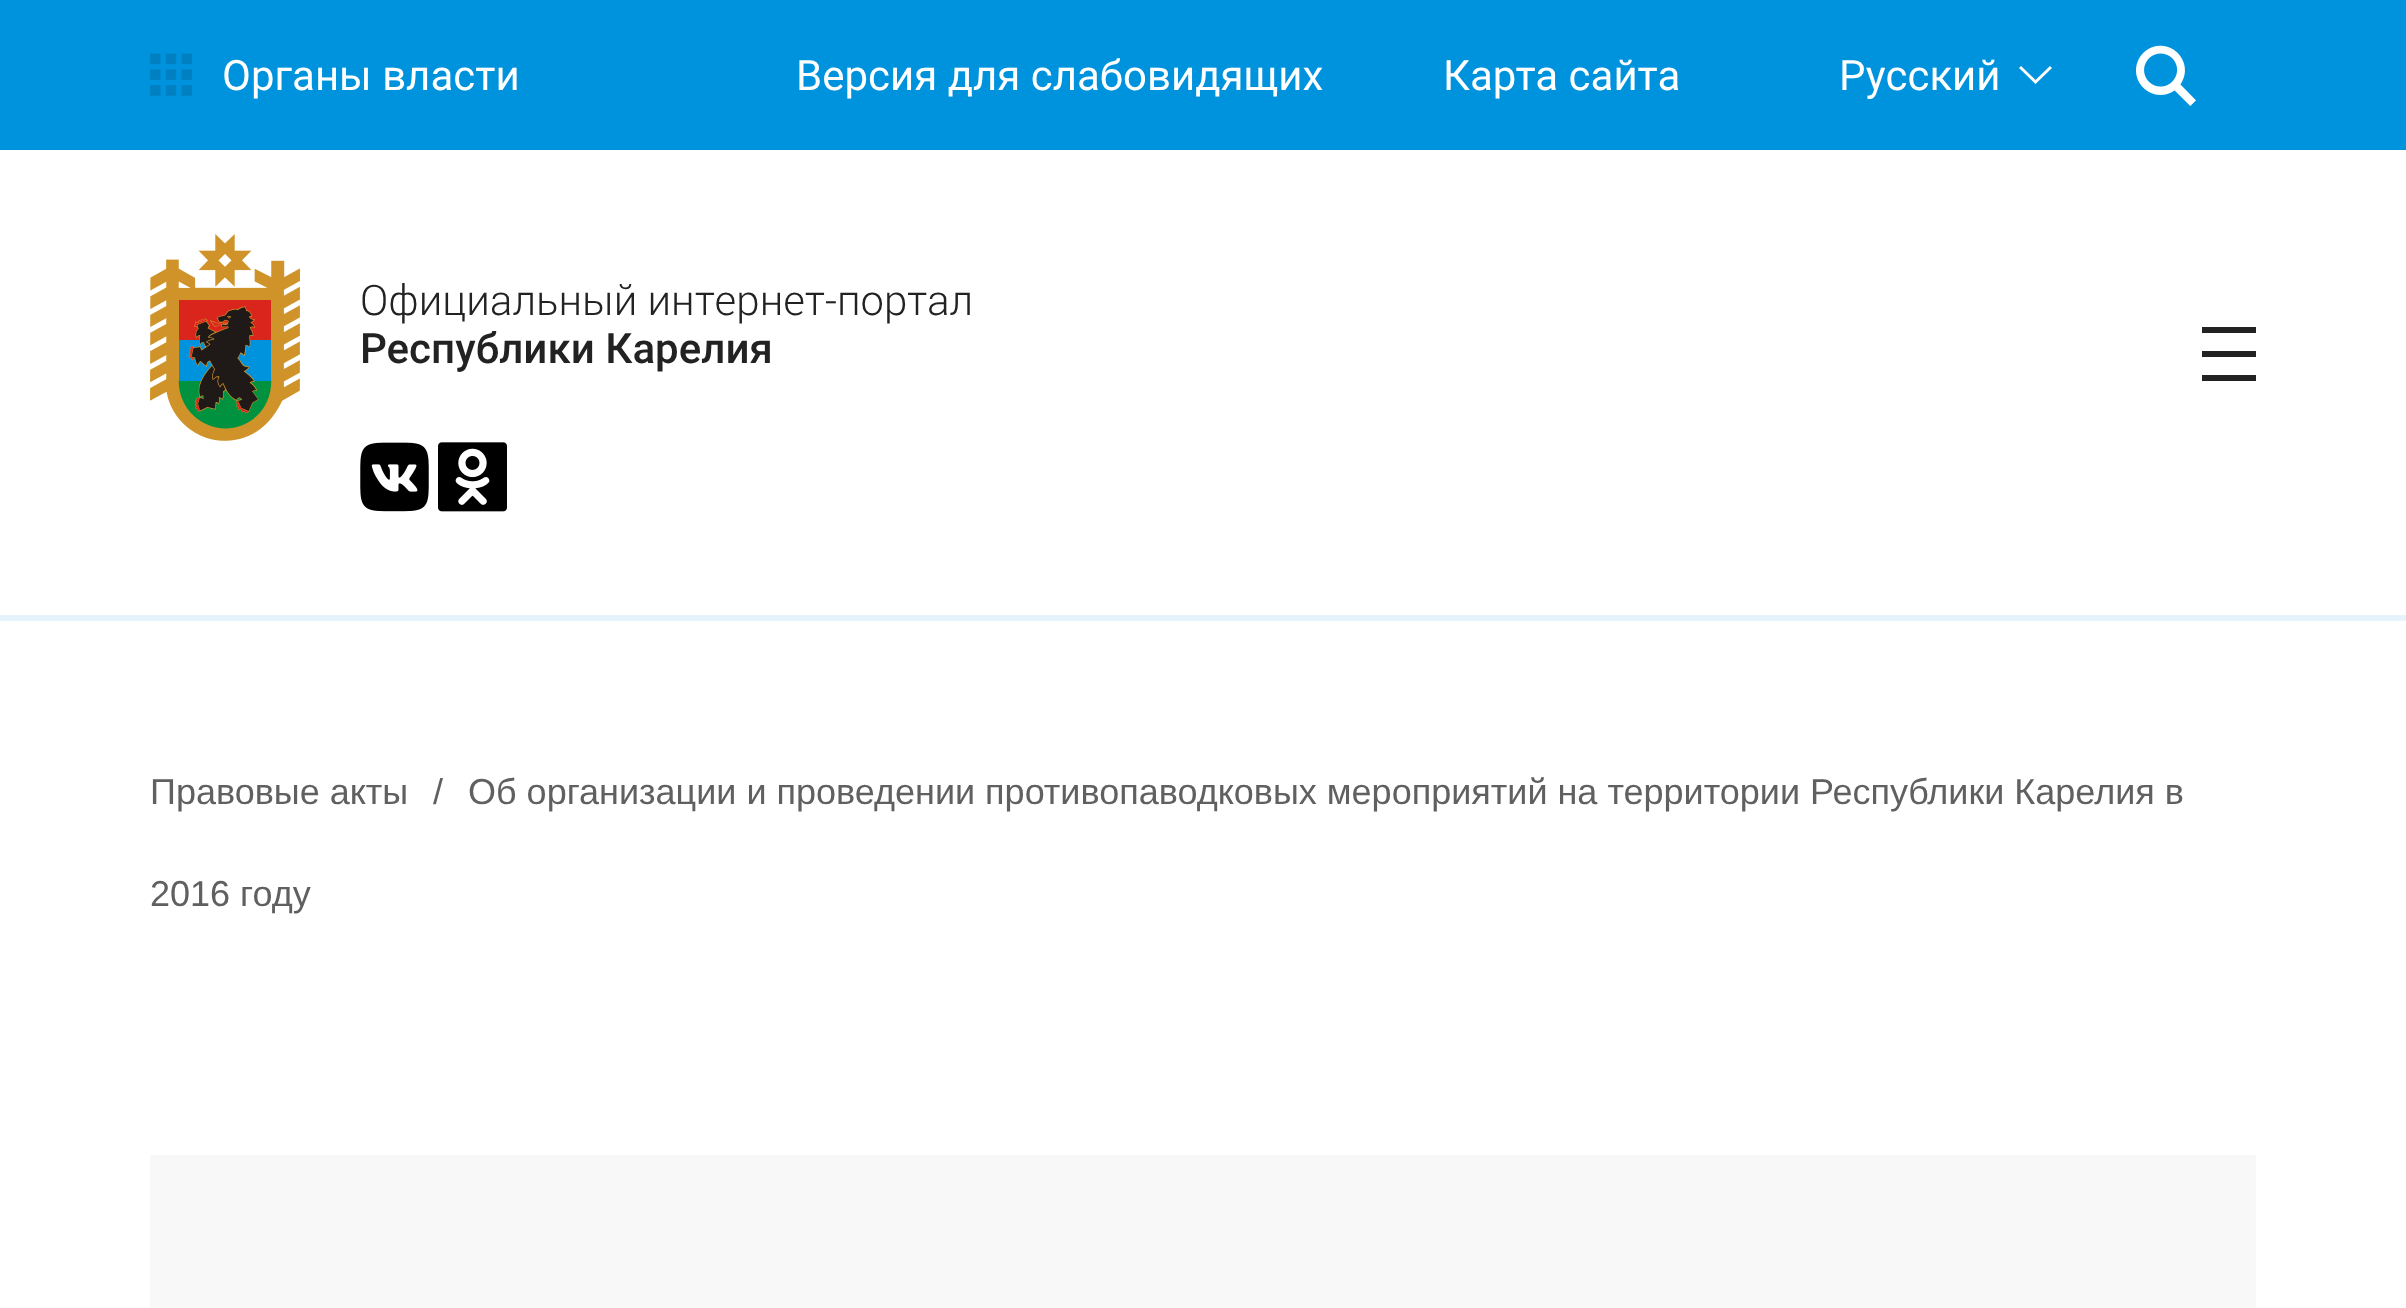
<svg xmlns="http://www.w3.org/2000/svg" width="2406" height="1308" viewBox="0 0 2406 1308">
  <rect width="100%" height="100%" fill="#fff"/>
  <path d="M0 0h2406v150H0z" fill="#0093dd"/>
  <image x="150" y="53" width="42" height="43" href="img/1.png"/>
  <path d="M2050 66L2035.5 80L2021 66L2019 68L2035.5 84L2052 68Z" fill="#fff"/>
  <image x="2136" y="45" width="60" height="61" href="img/2.png"/>
  <image x="150" y="234" width="150" height="207" href="img/3.png"/>
  <image x="360" y="442" width="69" height="70" href="img/4.png"/>
  <image x="438" y="442" width="69" height="70" href="img/5.png"/>
  <path d="M2202 327V333H2256V327ZM2202 357H2256V351H2202ZM2202 381H2256V375H2202Z" fill="#222"/>
  <path d="M0 615h2406v6H0z" fill="#e5f4fc"/>
  <path d="M150 1155h2106v153H150z" fill="#f8f8f8"/>
  <g font-family="Roboto" font-size="42" fill="#fff">
    <text x="222" y="90">Органы власти</text>
    <text x="796" y="90">Версия для слабовидящих</text>
    <text x="1443" y="90">Карта сайта</text>
    <text x="1839" y="90">Русский</text>
  </g>
  <text x="360" y="315" font-family="Roboto" font-size="42" font-weight="300" fill="#222">Официальный интернет-портал</text>
  <text x="360" y="363" font-family="Roboto" font-size="42" font-weight="500" fill="#222">Республики Карелия</text>
  <g font-family="Liberation Sans" font-size="36" fill="#606060">
    <text x="150" y="804">Правовые акты</text>
    <text x="433" y="804">/</text>
    <text x="468" y="804">Об организации и проведении противопаводковых мероприятий на территории Республики Карелия в</text>
    <text x="150" y="906">2016 году</text>
  </g>
</svg>
